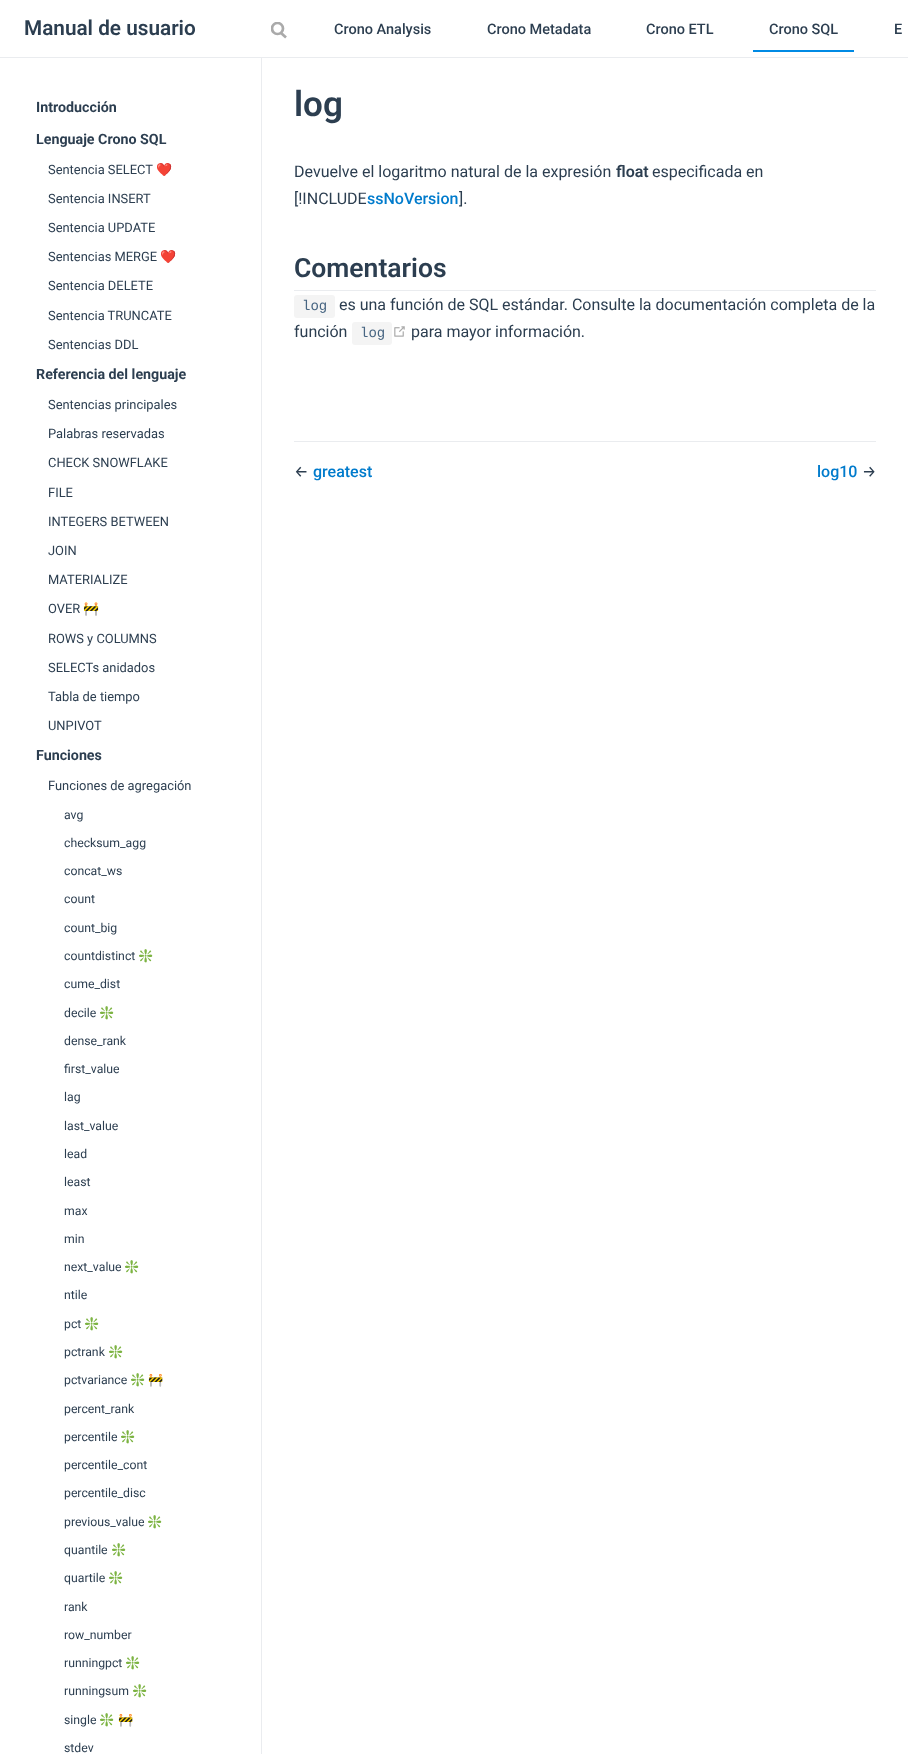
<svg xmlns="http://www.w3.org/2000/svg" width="908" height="1754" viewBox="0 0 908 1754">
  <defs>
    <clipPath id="clip1"><path d="M271 22h16v18H271z"/></clipPath>
  </defs>
  <rect width="100%" height="100%" fill="#fff"/>
  <path d="M0 57h908v1H0z" fill="#eaecef"/>
  <path d="M286 37.5L280.5 32.5" fill="none" stroke="#aaa" stroke-width="2.7"/>
  <g clip-path="url(#clip1)">
    <circle cx="277.5" cy="28.5" r="5.5" fill="none" stroke="#aaa" stroke-width="2.7"/>
  </g>
  <path d="M753 50h101v2H753z" fill="#008ae4"/>
  <path d="M261 58h1v1696H261z" fill="#eaecef"/>
  <path d="M294 290h582v1H294z" fill="#eaecef"/>
  <rect x="294" y="295" width="41" height="23" rx="3" fill="#f4f4f4"/>
  <rect x="352" y="322" width="40" height="23" rx="3" fill="#f4f4f4"/>
  <image x="394" y="326" width="11" height="11" href="img/1.png"/>
  <path d="M294 441h582v1H294z" fill="#eaecef"/>
  <text x="24" y="35" font-family="Roboto" font-size="20.75" font-weight="600" fill="#2c3e50">Manual de usuario</text>
  <g font-family="Roboto" font-size="14.5" font-weight="500" fill="#2c3e50">
    <text x="334" y="34">Crono Analysis</text>
    <text x="487" y="34">Crono Metadata</text>
    <text x="646" y="34">Crono ETL</text>
    <text x="769" y="34">Crono SQL</text>
    <text x="894" y="34">E</text>
  </g>
  <g font-family="Roboto" font-size="14.25" font-weight="bold" fill="#2c3e50">
    <text x="36" y="112">Introducción</text>
    <text x="36" y="144">Lenguaje Crono SQL</text>
  </g>
  <text x="48" y="174" font-family="Roboto" font-size="12.9" fill="#2c3e50">Sentencia SELECT</text>
  <text x="156" y="174" font-family="Noto Color Emoji" font-size="12.9" fill="#2c3e50">❤️</text>
  <g font-family="Roboto" font-size="12.9" fill="#2c3e50">
    <text x="48" y="203">Sentencia INSERT</text>
    <text x="48" y="232">Sentencia UPDATE</text>
    <text x="48" y="261">Sentencias MERGE</text>
  </g>
  <text x="160" y="261" font-family="Noto Color Emoji" font-size="12.9" fill="#2c3e50">❤️</text>
  <g font-family="Roboto" font-size="12.9" fill="#2c3e50">
    <text x="48" y="290">Sentencia DELETE</text>
    <text x="48" y="320">Sentencia TRUNCATE</text>
    <text x="48" y="349">Sentencias DDL</text>
  </g>
  <text x="36" y="379" font-family="Roboto" font-size="14.25" font-weight="bold" fill="#2c3e50">Referencia del lenguaje</text>
  <g font-family="Roboto" font-size="12.9" fill="#2c3e50">
    <text x="48" y="409">Sentencias principales</text>
    <text x="48" y="438">Palabras reservadas</text>
    <text x="48" y="467">CHECK SNOWFLAKE</text>
    <text x="48" y="497">FILE</text>
    <text x="48" y="526">INTEGERS BETWEEN</text>
    <text x="48" y="555">JOIN</text>
    <text x="48" y="584">MATERIALIZE</text>
    <text x="48" y="613">OVER</text>
  </g>
  <text x="83" y="613" font-family="Noto Color Emoji" font-size="12.9" fill="#2c3e50">🚧</text>
  <g font-family="Roboto" font-size="12.9" fill="#2c3e50">
    <text x="48" y="643">ROWS y COLUMNS</text>
    <text x="48" y="672">SELECTs anidados</text>
    <text x="48" y="701">Tabla de tiempo</text>
    <text x="48" y="730">UNPIVOT</text>
  </g>
  <text x="36" y="760" font-family="Roboto" font-size="14.25" font-weight="bold" fill="#2c3e50">Funciones</text>
  <text x="48" y="790" font-family="Roboto" font-size="12.9" fill="#2c3e50">Funciones de agregación</text>
  <g font-family="Roboto" font-size="12.25" fill="#2c3e50">
    <text x="64" y="819">avg</text>
    <text x="64" y="847">checksum_agg</text>
    <text x="64" y="875">concat_ws</text>
    <text x="64" y="903">count</text>
    <text x="64" y="932">count_big</text>
    <text x="64" y="960">countdistinct</text>
  </g>
  <text x="138" y="960" font-family="Noto Color Emoji" font-size="12.25" fill="#2c3e50">❇️</text>
  <g font-family="Roboto" font-size="12.25" fill="#2c3e50">
    <text x="64" y="988">cume_dist</text>
    <text x="64" y="1017">decile</text>
  </g>
  <text x="99" y="1017" font-family="Noto Color Emoji" font-size="12.25" fill="#2c3e50">❇️</text>
  <g font-family="Roboto" font-size="12.25" fill="#2c3e50">
    <text x="64" y="1045">dense_rank</text>
    <text x="64" y="1073">first_value</text>
    <text x="64" y="1101">lag</text>
    <text x="64" y="1130">last_value</text>
    <text x="64" y="1158">lead</text>
    <text x="64" y="1186">least</text>
    <text x="64" y="1215">max</text>
    <text x="64" y="1243">min</text>
    <text x="64" y="1271">next_value</text>
  </g>
  <text x="124" y="1271" font-family="Noto Color Emoji" font-size="12.25" fill="#2c3e50">❇️</text>
  <g font-family="Roboto" font-size="12.25" fill="#2c3e50">
    <text x="64" y="1299">ntile</text>
    <text x="64" y="1328">pct</text>
  </g>
  <text x="84" y="1328" font-family="Noto Color Emoji" font-size="12.25" fill="#2c3e50">❇️</text>
  <text x="64" y="1356" font-family="Roboto" font-size="12.25" fill="#2c3e50">pctrank</text>
  <text x="108" y="1356" font-family="Noto Color Emoji" font-size="12.25" fill="#2c3e50">❇️</text>
  <text x="64" y="1384" font-family="Roboto" font-size="12.25" fill="#2c3e50">pctvariance</text>
  <g font-family="Noto Color Emoji" font-size="12.25" fill="#2c3e50">
    <text x="130" y="1384">❇️</text>
    <text x="148" y="1384">🚧</text>
  </g>
  <g font-family="Roboto" font-size="12.25" fill="#2c3e50">
    <text x="64" y="1413">percent_rank</text>
    <text x="64" y="1441">percentile</text>
  </g>
  <text x="120" y="1441" font-family="Noto Color Emoji" font-size="12.25" fill="#2c3e50">❇️</text>
  <g font-family="Roboto" font-size="12.25" fill="#2c3e50">
    <text x="64" y="1469">percentile_cont</text>
    <text x="64" y="1497">percentile_disc</text>
    <text x="64" y="1526">previous_value</text>
  </g>
  <text x="147" y="1526" font-family="Noto Color Emoji" font-size="12.25" fill="#2c3e50">❇️</text>
  <text x="64" y="1554" font-family="Roboto" font-size="12.25" fill="#2c3e50">quantile</text>
  <text x="111" y="1554" font-family="Noto Color Emoji" font-size="12.25" fill="#2c3e50">❇️</text>
  <text x="64" y="1582" font-family="Roboto" font-size="12.25" fill="#2c3e50">quartile</text>
  <text x="108" y="1582" font-family="Noto Color Emoji" font-size="12.25" fill="#2c3e50">❇️</text>
  <g font-family="Roboto" font-size="12.25" fill="#2c3e50">
    <text x="64" y="1611">rank</text>
    <text x="64" y="1639">row_number</text>
    <text x="64" y="1667">runningpct</text>
  </g>
  <text x="125" y="1667" font-family="Noto Color Emoji" font-size="12.25" fill="#2c3e50">❇️</text>
  <text x="64" y="1695" font-family="Roboto" font-size="12.25" fill="#2c3e50">runningsum</text>
  <text x="132" y="1695" font-family="Noto Color Emoji" font-size="12.25" fill="#2c3e50">❇️</text>
  <text x="64" y="1724" font-family="Roboto" font-size="12.25" fill="#2c3e50">single</text>
  <g font-family="Noto Color Emoji" font-size="12.25" fill="#2c3e50">
    <text x="99" y="1724">❇️</text>
    <text x="118" y="1724">🚧</text>
  </g>
  <text x="64" y="1752" font-family="Roboto" font-size="12.25" fill="#2c3e50">stdev</text>
  <text x="294" y="116" font-family="Roboto" font-size="35" font-weight="600" fill="#2c3e50">log</text>
  <text x="294" y="177" font-family="Roboto" font-size="16" fill="#2c3e50">Devuelve el logaritmo natural de la expresión</text>
  <text x="616" y="177" font-family="Roboto" font-size="16" font-weight="600" fill="#2c3e50">float</text>
  <g font-family="Roboto" font-size="16" fill="#2c3e50">
    <text x="652" y="177">especificada en</text>
    <text x="294" y="204">[!INCLUDE</text>
  </g>
  <text x="367" y="204" font-family="Roboto" font-size="16" font-weight="500" fill="#007bcc">ssNoVersion</text>
  <text x="459" y="204" font-family="Roboto" font-size="16" fill="#2c3e50">].</text>
  <text x="294" y="277" font-family="Roboto" font-size="26.5" font-weight="600" fill="#2c3e50">Comentarios</text>
  <text x="302" y="310" font-family="Liberation Mono" font-size="14" fill="#476582">log</text>
  <g font-family="Roboto" font-size="16" fill="#2c3e50">
    <text x="339" y="310">es una función de SQL estándar. Consulte la documentación completa de la</text>
    <text x="294" y="337">función</text>
  </g>
  <text x="360" y="337" font-family="Liberation Mono" font-size="14" fill="#476582">log</text>
  <text x="411" y="337" font-family="Roboto" font-size="16" fill="#2c3e50">para mayor información.</text>
  <text x="294" y="477" font-family="Fira Sans" font-size="16" fill="#2c3e50">←</text>
  <g font-family="Roboto" font-size="16" font-weight="500" fill="#007bcc">
    <text x="313" y="477">greatest</text>
    <text x="817" y="477">log10</text>
  </g>
  <text x="862" y="477" font-family="Fira Sans" font-size="16" fill="#2c3e50">→</text>
</svg>
